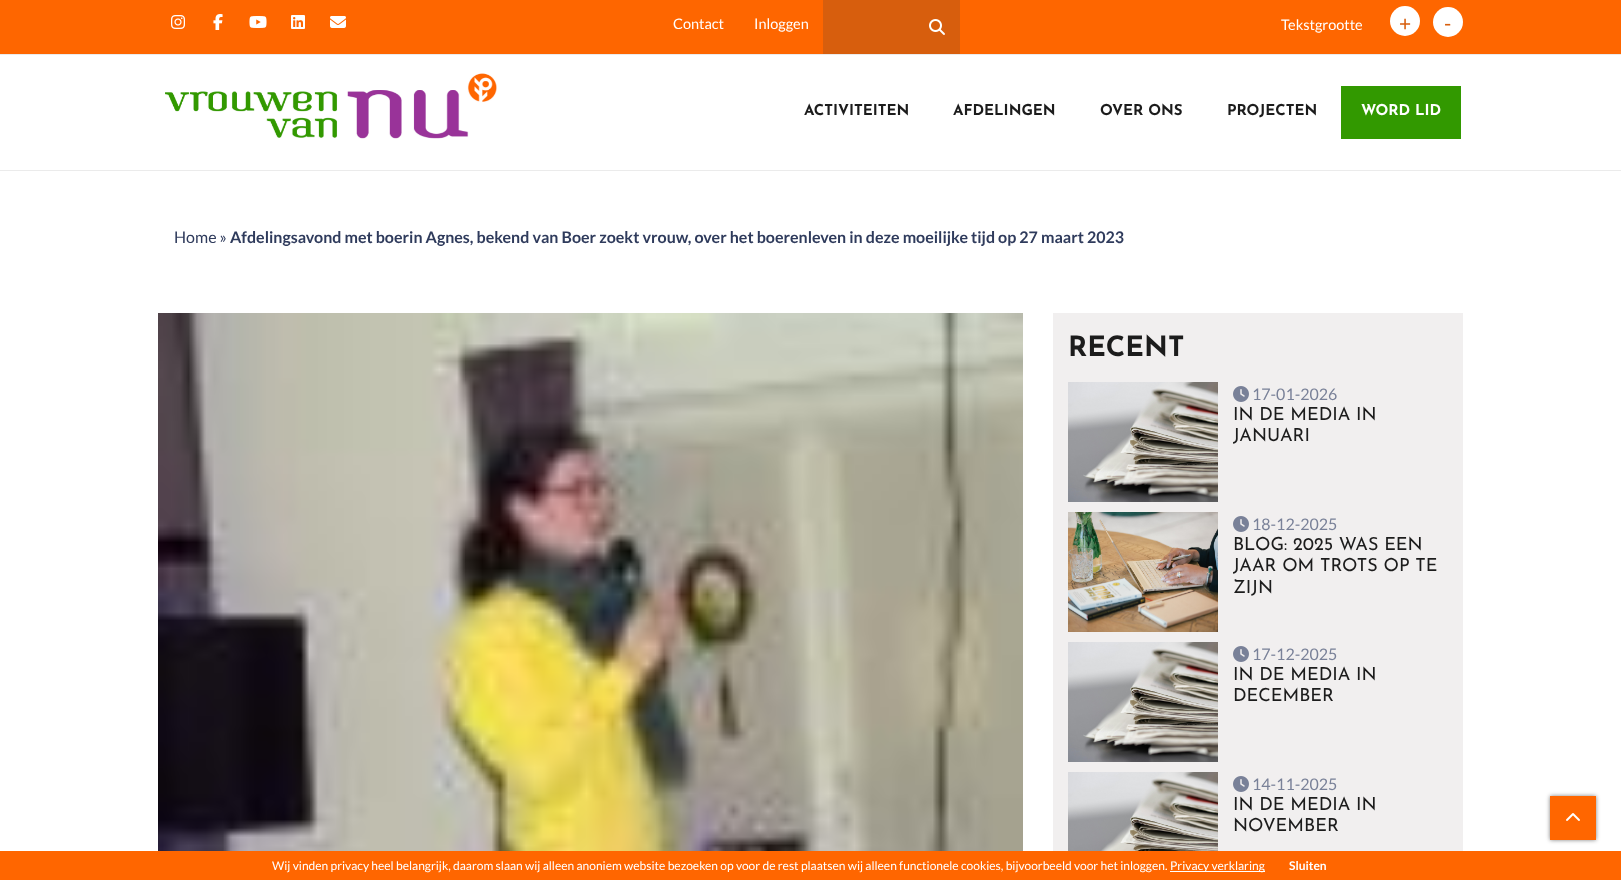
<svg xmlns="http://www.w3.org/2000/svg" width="1621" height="880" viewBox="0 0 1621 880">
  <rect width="100%" height="100%" fill="#fff"/>
  <path d="M0 0h1621v54H0z" fill="#fe6600"/>
  <image x="171" y="15" width="14" height="14" href="img/1.png"/>
  <image x="213" y="14" width="10" height="16" href="img/2.png"/>
  <image x="249" y="16" width="18" height="12" href="img/3.png"/>
  <image x="291" y="15" width="14" height="14" href="img/4.png"/>
  <image x="330" y="16" width="16" height="12" href="img/5.png"/>
  <path d="M823 0h137v54H823z" fill="#d75e0d"/>
  <image x="929" y="19" width="16" height="16" href="img/6.png"/>
  <circle cx="1405" cy="21" r="15" fill="#fff"/>
  <circle cx="1448" cy="22" r="15" fill="#fff"/>
  <path d="M0 54h1621v1H0z" fill="#ebebeb"/>
  <path d="M0 170h1621v1H0z" fill="#ebebeb"/>
  <image x="165" y="73" width="332" height="66" href="img/7.png"/>
  <path d="M1341 86h120v53H1341z" fill="#329900"/>
  <image x="158" y="313" width="865" height="538" href="img/8.png"/>
  <path d="M1053 313h410v538H1053z" fill="#f1efef"/>
  <image x="1068" y="382" width="150" height="120" href="img/9.png"/>
  <image x="1233" y="386" width="16" height="16" href="img/10.png"/>
  <image x="1068" y="512" width="150" height="120" href="img/11.png"/>
  <image x="1233" y="516" width="16" height="16" href="img/10.png"/>
  <image x="1068" y="642" width="150" height="120" href="img/12.png"/>
  <image x="1233" y="646" width="16" height="16" href="img/10.png"/>
  <image x="1068" y="772" width="150" height="79" href="img/13.png"/>
  <image x="1233" y="776" width="16" height="16" href="img/10.png"/>
  <path d="M1550 796h46v44H1550z" fill="#00000080" filter="blur(2px)"/>
  <path d="M1550 796h46v44H1550z" fill="#f60"/>
  <image x="1566" y="813" width="14" height="8" href="img/14.png"/>
  <path d="M0 851h1621v29H0z" fill="#f60"/>
  <path d="M1170 871h95v1H1170z" fill="#fff"/>
  <g font-family="Lato" font-size="14.5" fill="#fff">
    <text x="673" y="29">Contact</text>
    <text x="754" y="29">Inloggen</text>
    <text x="1281" y="30">Tekstgrootte</text>
  </g>
  <g font-family="Lato" font-size="21" fill="#d75e0d">
    <text x="1399" y="31">+</text>
    <text x="1444" y="31">-</text>
  </g>
  <g font-family="Josefin Sans" font-size="15" font-weight="bold" fill="#1c1c1c">
    <text x="804" y="115">ACTIVITEITEN</text>
    <text x="953" y="115">AFDELINGEN</text>
    <text x="1100" y="115">OVER ONS</text>
    <text x="1227" y="115">PROJECTEN</text>
  </g>
  <text x="1361" y="115" font-family="Josefin Sans" font-size="15" font-weight="bold" fill="#fff">WORD LID</text>
  <text x="174" y="243" font-family="Lato" font-size="16" fill="#2f3b5c">Home »</text>
  <text x="230" y="243" font-family="Lato" font-size="16" font-weight="bold" fill="#2f3b5c">Afdelingsavond met boerin Agnes, bekend van Boer zoekt vrouw, over het boerenleven in deze moeilijke tijd op 27 maart 2023</text>
  <text x="1068" y="356" font-family="Josefin Sans" font-size="28" font-weight="bold" fill="#1c1c1c">RECENT</text>
  <text x="1252" y="400" font-family="Lato" font-size="16" fill="#798198">17-01-2026</text>
  <g font-family="Josefin Sans" font-size="18" fill="#1c1c1c">
    <text x="1233" y="420">IN DE MEDIA IN</text>
    <text x="1233" y="441">JANUARI</text>
  </g>
  <text x="1252" y="530" font-family="Lato" font-size="16" fill="#798198">18-12-2025</text>
  <g font-family="Josefin Sans" font-size="18" fill="#1c1c1c">
    <text x="1233" y="550">BLOG: 2025 WAS EEN</text>
    <text x="1233" y="571">JAAR OM TROTS OP TE</text>
    <text x="1233" y="593">ZIJN</text>
  </g>
  <text x="1252" y="660" font-family="Lato" font-size="16" fill="#798198">17-12-2025</text>
  <g font-family="Josefin Sans" font-size="18" fill="#1c1c1c">
    <text x="1233" y="680">IN DE MEDIA IN</text>
    <text x="1233" y="701">DECEMBER</text>
  </g>
  <text x="1252" y="790" font-family="Lato" font-size="16" fill="#798198">14-11-2025</text>
  <g font-family="Josefin Sans" font-size="18" fill="#1c1c1c">
    <text x="1233" y="810">IN DE MEDIA IN</text>
    <text x="1233" y="831">NOVEMBER</text>
  </g>
  <g font-family="Lato" font-size="12" fill="#fff">
    <text x="272" y="870">Wij vinden privacy heel belangrijk, daarom slaan wij alleen anoniem website bezoeken op voor de rest plaatsen wij alleen functionele cookies, bijvoorbeeld voor het inloggen.</text>
    <text x="1170" y="870">Privacy verklaring</text>
  </g>
  <text x="1289" y="870" font-family="Lato" font-size="12" font-weight="bold" fill="#fff">Sluiten</text>
</svg>
